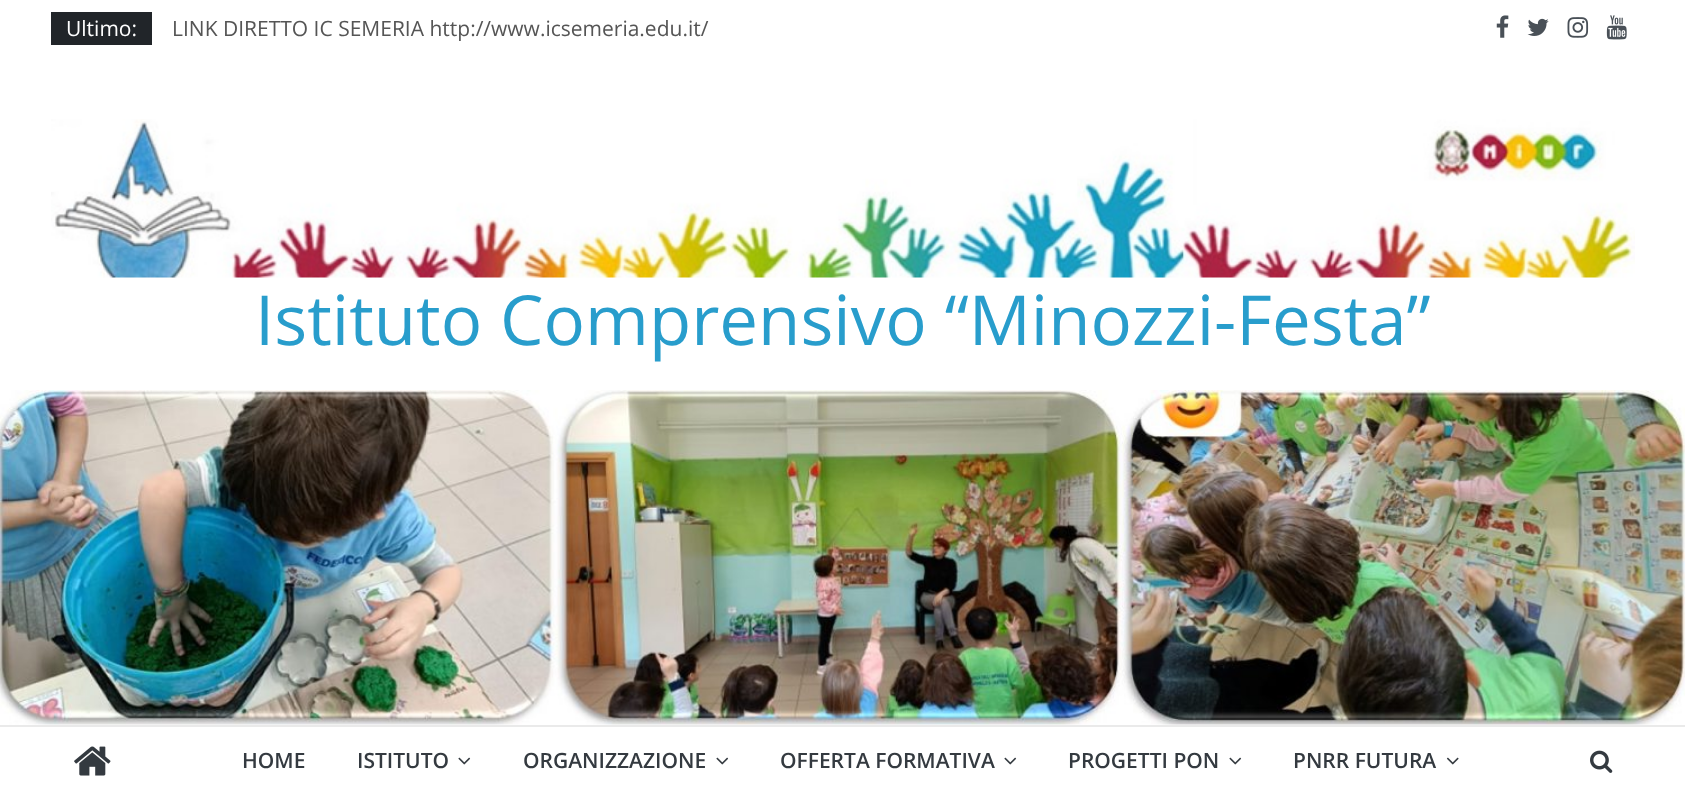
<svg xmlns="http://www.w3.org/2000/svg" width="1685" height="808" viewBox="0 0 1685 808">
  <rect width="100%" height="100%" fill="#fff"/>
  <path d="M51 12h101v33H51z" fill="#212529"/>
  <image x="1496" y="15" width="13" height="23" href="img/1.png"/>
  <image x="1527" y="18" width="22" height="18" href="img/2.png"/>
  <image x="1567" y="17" width="22" height="21" href="img/3.png"/>
  <image x="1606" y="15" width="21" height="25" href="img/4.png"/>
  <image x="51" y="119" width="1584" height="159" href="img/5.png"/>
  <image x="0" y="390" width="1685" height="335" href="img/6.png"/>
  <path d="M0 725h1685v2H0z" fill="#eaeaea"/>
  <image x="74" y="746" width="37" height="30" href="img/7.png"/>
  <image x="458" y="757" width="13" height="8" href="img/8.png"/>
  <image x="716" y="757" width="13" height="8" href="img/8.png"/>
  <image x="1004" y="757" width="13" height="8" href="img/8.png"/>
  <image x="1229" y="757" width="13" height="8" href="img/8.png"/>
  <image x="1446" y="757" width="13" height="8" href="img/9.png"/>
  <image x="1590" y="750" width="23" height="23" href="img/10.png"/>
  <text x="66" y="36" font-family="Open Sans" font-size="21" fill="#fff">Ultimo:</text>
  <text x="172" y="36" font-family="Open Sans" font-size="21" fill="#555">LINK DIRETTO IC SEMERIA http://www.icsemeria.edu.it/</text>
  <text x="255" y="345" font-family="Open Sans" font-size="69" fill="#289dcc">Istituto Comprensivo “Minozzi-Festa”</text>
  <g font-family="Open Sans" font-size="21" font-weight="600" fill="#343a40">
    <text x="242" y="768">HOME</text>
    <text x="357" y="768">ISTITUTO</text>
    <text x="523" y="768">ORGANIZZAZIONE</text>
    <text x="780" y="768">OFFERTA FORMATIVA</text>
    <text x="1068" y="768">PROGETTI PON</text>
    <text x="1293" y="768">PNRR FUTURA</text>
  </g>
</svg>
